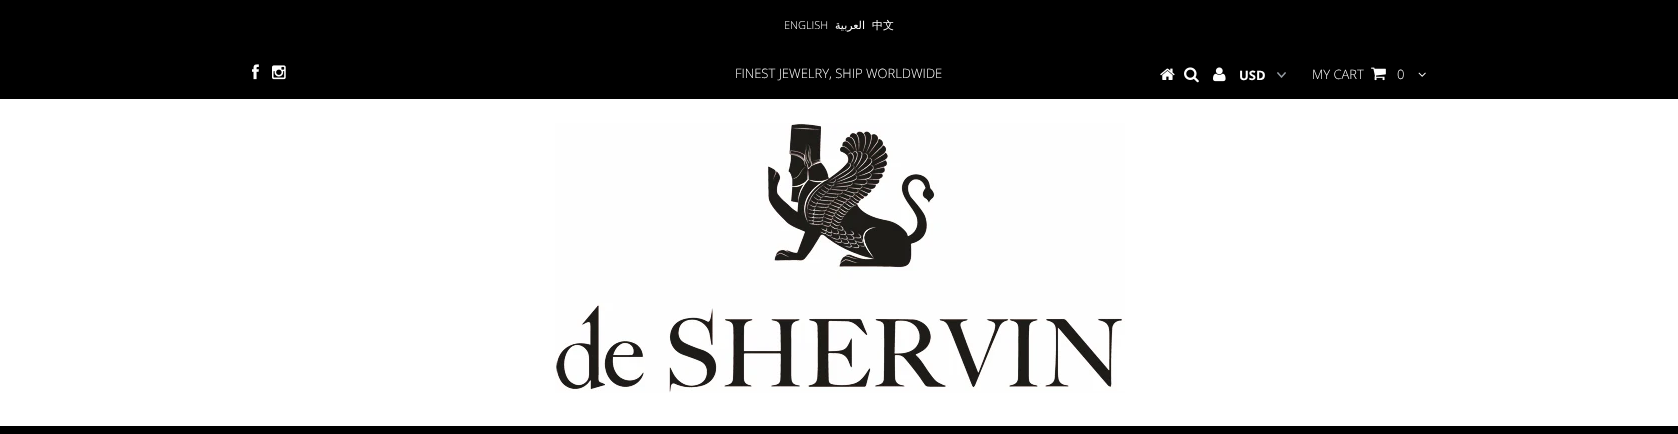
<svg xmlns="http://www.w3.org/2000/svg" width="1678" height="434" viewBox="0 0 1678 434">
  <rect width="100%" height="100%" fill="#fff"/>
  <path d="M0 0h1678v99H0z" fill="#000"/>
  <image x="252" y="64" width="7" height="16" href="img/1.png"/>
  <image x="272" y="65" width="14" height="15" href="img/2.png"/>
  <image x="1160" y="68" width="15" height="12" href="img/3.png"/>
  <image x="1184" y="67" width="15" height="16" href="img/4.png"/>
  <image x="1213" y="67" width="13" height="15" href="img/5.png"/>
  <image x="1277" y="72" width="9" height="6" href="img/6.png"/>
  <image x="1371" y="67" width="15" height="14" href="img/7.png"/>
  <image x="1418" y="72" width="8" height="5" href="img/8.png"/>
  <image x="555" y="123" width="570" height="270" href="img/9.png"/>
  <path d="M0 426h1678v8H0z" fill="#000"/>
  <text x="784" y="29" font-family="Open Sans" font-size="11" font-weight="300" fill="#fff">ENGLISH</text>
  <text x="865" y="29" font-family="DejaVu Sans" font-size="11" direction="rtl" fill="#fff">العربية</text>
  <text x="872" y="29" font-family="WenQuanYi Zen Hei" font-size="11" font-weight="500" fill="#fff">中文</text>
  <text x="735" y="78" font-family="Open Sans" font-size="13" font-weight="300" fill="#fff">FINEST JEWELRY, SHIP WORLDWIDE</text>
  <text x="1239" y="80" font-family="Open Sans" font-size="13" font-weight="bold" fill="#fff">USD</text>
  <g font-family="Open Sans" font-size="13" font-weight="300" fill="#fff">
    <text x="1312" y="79">MY CART</text>
    <text x="1397" y="79">0</text>
  </g>
</svg>
